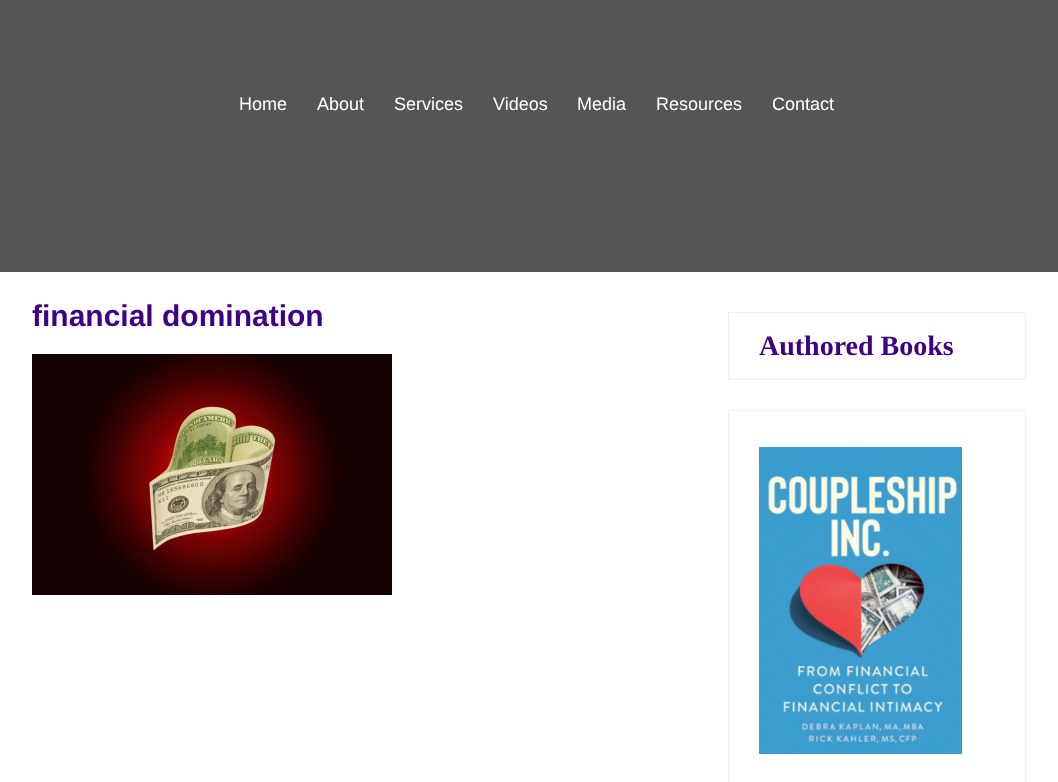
<svg xmlns="http://www.w3.org/2000/svg" width="1058" height="782" viewBox="0 0 1058 782">
  <rect width="100%" height="100%" fill="#fff"/>
  <path d="M0 0h1058v272H0z" fill="#545556"/>
  <image x="32" y="354" width="360" height="241" href="img/1.png"/>
  <path d="M728.5 312.5h297v67H728.5z" fill="none" stroke="#eeeff5"/>
  <path d="M728.5 410.5h297v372H728.5z" fill="none" stroke="#eeeff5"/>
  <image x="759" y="447" width="203" height="307" href="img/2.png"/>
  <g font-family="Liberation Sans" font-size="18" fill="#fff">
    <text x="239" y="110">Home</text>
    <text x="317" y="110">About</text>
    <text x="394" y="110">Services</text>
    <text x="493" y="110">Videos</text>
    <text x="577" y="110">Media</text>
    <text x="656" y="110">Resources</text>
    <text x="772" y="110">Contact</text>
  </g>
  <text x="32" y="326" font-family="Liberation Sans" font-size="30" font-weight="bold" fill="#3e0184">financial domination</text>
  <text x="759" y="355" font-family="Liberation Serif" font-size="28" font-weight="bold" fill="#3e0184">Authored Books</text>
</svg>
